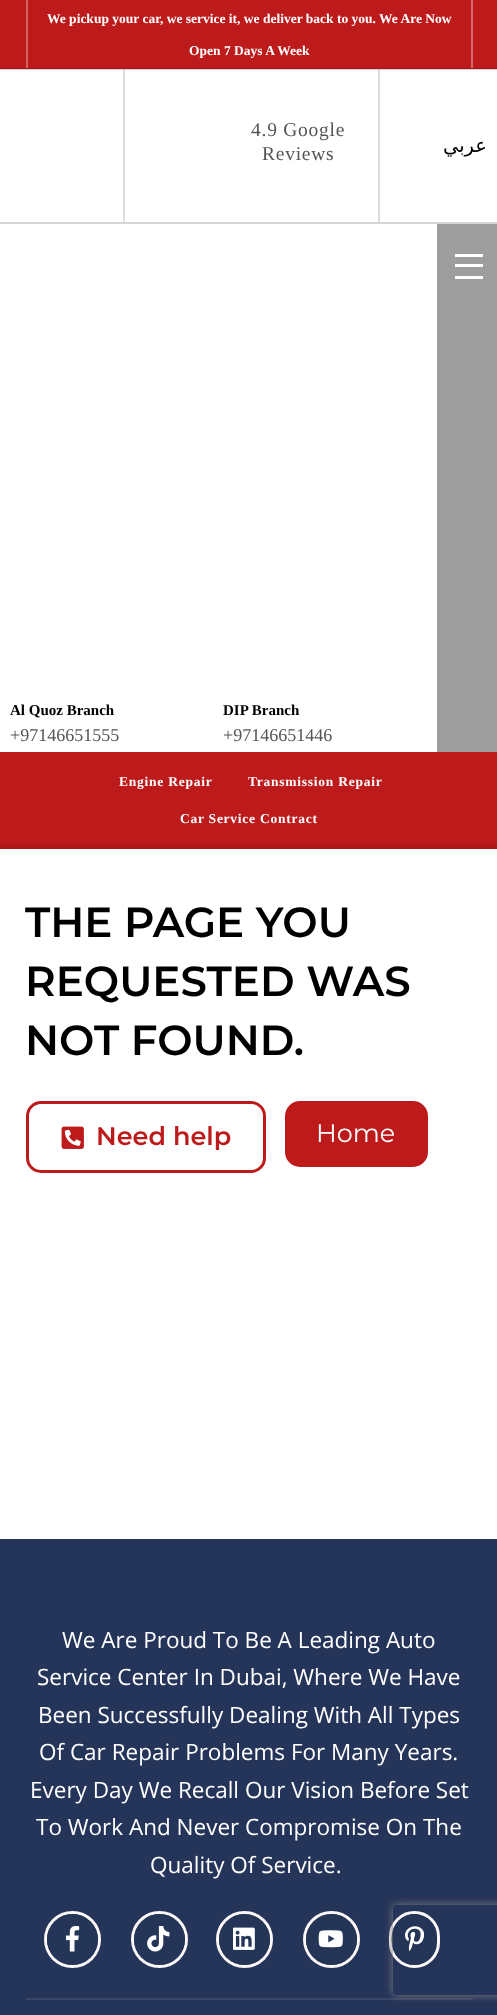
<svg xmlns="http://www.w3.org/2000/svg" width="497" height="2015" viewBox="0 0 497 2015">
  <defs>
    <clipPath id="clip1"><path d="M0 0h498v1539H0z"/></clipPath>
    <clipPath id="clip2"><path d="M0 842h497v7H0z"/></clipPath>
    <clipPath id="clip3"><path d="M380 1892H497V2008H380ZM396 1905H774C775.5 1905 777 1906.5 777 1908V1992C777 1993.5 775.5 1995 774 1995H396C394.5 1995 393 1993.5 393 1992V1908C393 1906.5 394.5 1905 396 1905Z" clip-rule="evenodd"/></clipPath>
  </defs>
  <rect width="100%" height="100%" fill="#fff"/>
  <path d="M123 69h2v153H123z" fill="#dedede"/>
  <path d="M378 69h2v153H378z" fill="#dbdbdb"/>
  <path d="M0 69h497v1H0z" fill="#d6d6d6"/>
  <path d="M123 69h2v1H123z" fill="#bababa"/>
  <path d="M378 69h2v1H378z" fill="#b8b8b8"/>
  <path d="M0 0h497v68H0z" fill="#bd1b1b"/>
  <path d="M0 68h497v1H0z" fill="#9f1717"/>
  <path d="M471 0h2v68H471z" fill="#d36666"/>
  <path d="M26 0h2v68H26z" fill="#d26464"/>
  <path d="M0 222h497v2H0z" fill="#d6d6d6"/>
  <path d="M437 224h60v528H437z" fill="#9e9e9e"/>
  <path d="M455 276h28v3H455z" fill="#fff"/>
  <path d="M455 254h28v3H455z" fill="#fff"/>
  <path d="M455 264h28v3H455z" fill="#fff"/>
  <path d="M0 752h497v97H0z" fill="#bd1b1b"/>
  <path d="M0 1539h497v476H0z" fill="#253459"/>
  <g clip-path="url(#clip1)">
    <g clip-path="url(#clip2)">
      <path d="M0 849h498v690H0z" fill="#0000004d" filter="blur(4.5px)"/>
    </g>
  </g>
  <rect x="27.5" y="1102.5" width="237" height="69" rx="13.5" fill="none" stroke="#bd1b1b" stroke-width="3"/>
  <image x="61" y="1126" width="23" height="23" href="img/1.png"/>
  <rect x="285" y="1101" width="143" height="66" rx="15" fill="#bd1b1b"/>
  <path d="M26 1998h447v2H26z" fill="#394668"/>
  <circle cx="72.5" cy="1939.5" r="27" fill="none" stroke="#fcf7f7" stroke-width="3"/>
  <circle cx="72.5" cy="1939.5" r="25.5" fill="#243557"/>
  <image x="65" y="1926" width="15" height="26" href="img/2.png"/>
  <circle cx="159.5" cy="1939.5" r="27" fill="none" stroke="#fcf7f7" stroke-width="3"/>
  <circle cx="159.5" cy="1939.5" r="25.5" fill="#243557"/>
  <image x="147" y="1926" width="23" height="26" href="img/3.png"/>
  <circle cx="244.5" cy="1939.5" r="27" fill="none" stroke="#fcf7f7" stroke-width="3"/>
  <circle cx="244.5" cy="1939.5" r="25.5" fill="#243557"/>
  <image x="233" y="1927" width="22" height="23" href="img/4.png"/>
  <circle cx="331.5" cy="1939.5" r="27" fill="none" stroke="#fcf7f7" stroke-width="3"/>
  <circle cx="331.5" cy="1939.5" r="25.5" fill="#243557"/>
  <image x="318" y="1930" width="25" height="18" href="img/5.png"/>
  <rect x="390.5" y="1912.5" width="48" height="54" rx="24" fill="none" stroke="#fcf7f7" stroke-width="3"/>
  <ellipse cx="414" cy="1939.5" rx="22.5" ry="25.5" fill="#243557"/>
  <image x="405" y="1926" width="19" height="26" href="img/6.png"/>
  <g clip-path="url(#clip3)">
    <rect x="393" y="1905" width="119" height="90" rx="3" fill="#808080" filter="blur(4px)"/>
  </g>
  <g font-family="Liberation Serif" font-size="13.5" font-weight="bold" fill="#fff">
    <text x="47" y="23">We pickup your car, we service it, we deliver back to you. We Are Now</text>
    <text x="189" y="55">Open 7 Days A Week</text>
  </g>
  <g font-family="Liberation Serif" font-size="19.5" letter-spacing="0.75" fill="#555">
    <text x="251" y="136">4.9 Google</text>
    <text x="262" y="160">Reviews</text>
  </g>
  <text x="487" y="152" font-family="DejaVu Sans" font-size="19.5" letter-spacing="0.75" direction="rtl" fill="#000">عربي</text>
  <text x="10" y="715" font-family="Liberation Serif" font-size="15" font-weight="bold" fill="#000">Al Quoz Branch</text>
  <text x="10" y="741" font-family="Liberation Serif" font-size="18" fill="#555">+97146651555</text>
  <text x="223" y="715" font-family="Liberation Serif" font-size="15" font-weight="bold" fill="#000">DIP Branch</text>
  <text x="223" y="741" font-family="Liberation Serif" font-size="18" fill="#555">+97146651446</text>
  <g font-family="Liberation Serif" font-size="13.5" font-weight="bold" letter-spacing="0.75" fill="#fff">
    <text x="119" y="786">Engine Repair</text>
    <text x="248" y="786">Transmission Repair</text>
    <text x="180" y="823">Car Service Contract</text>
  </g>
  <g font-family="Montserrat" font-size="42" font-weight="600" fill="#000">
    <text x="25" y="937">THE PAGE YOU</text>
    <text x="25" y="996">REQUESTED WAS</text>
    <text x="25" y="1055">NOT FOUND.</text>
  </g>
  <text x="96" y="1145" font-family="Montserrat" font-size="25.5" font-weight="600" fill="#bd1b1b">Need help</text>
  <text x="316" y="1142" font-family="Montserrat" font-size="25.5" fill="#fff">Home</text>
  <g font-family="Open Sans" font-size="22.5" fill="#fff">
    <text x="62" y="1648">We Are Proud To Be A Leading Auto</text>
    <text x="37" y="1685">Service Center In Dubai, Where We Have</text>
    <text x="38" y="1723">Been Successfully Dealing With All Types</text>
    <text x="39" y="1760">Of Car Repair Problems For Many Years.</text>
    <text x="30" y="1798">Every Day We Recall Our Vision Before Set</text>
    <text x="36" y="1835">To Work And Never Compromise On The</text>
    <text x="150" y="1873">Quality Of Service.</text>
  </g>
</svg>
